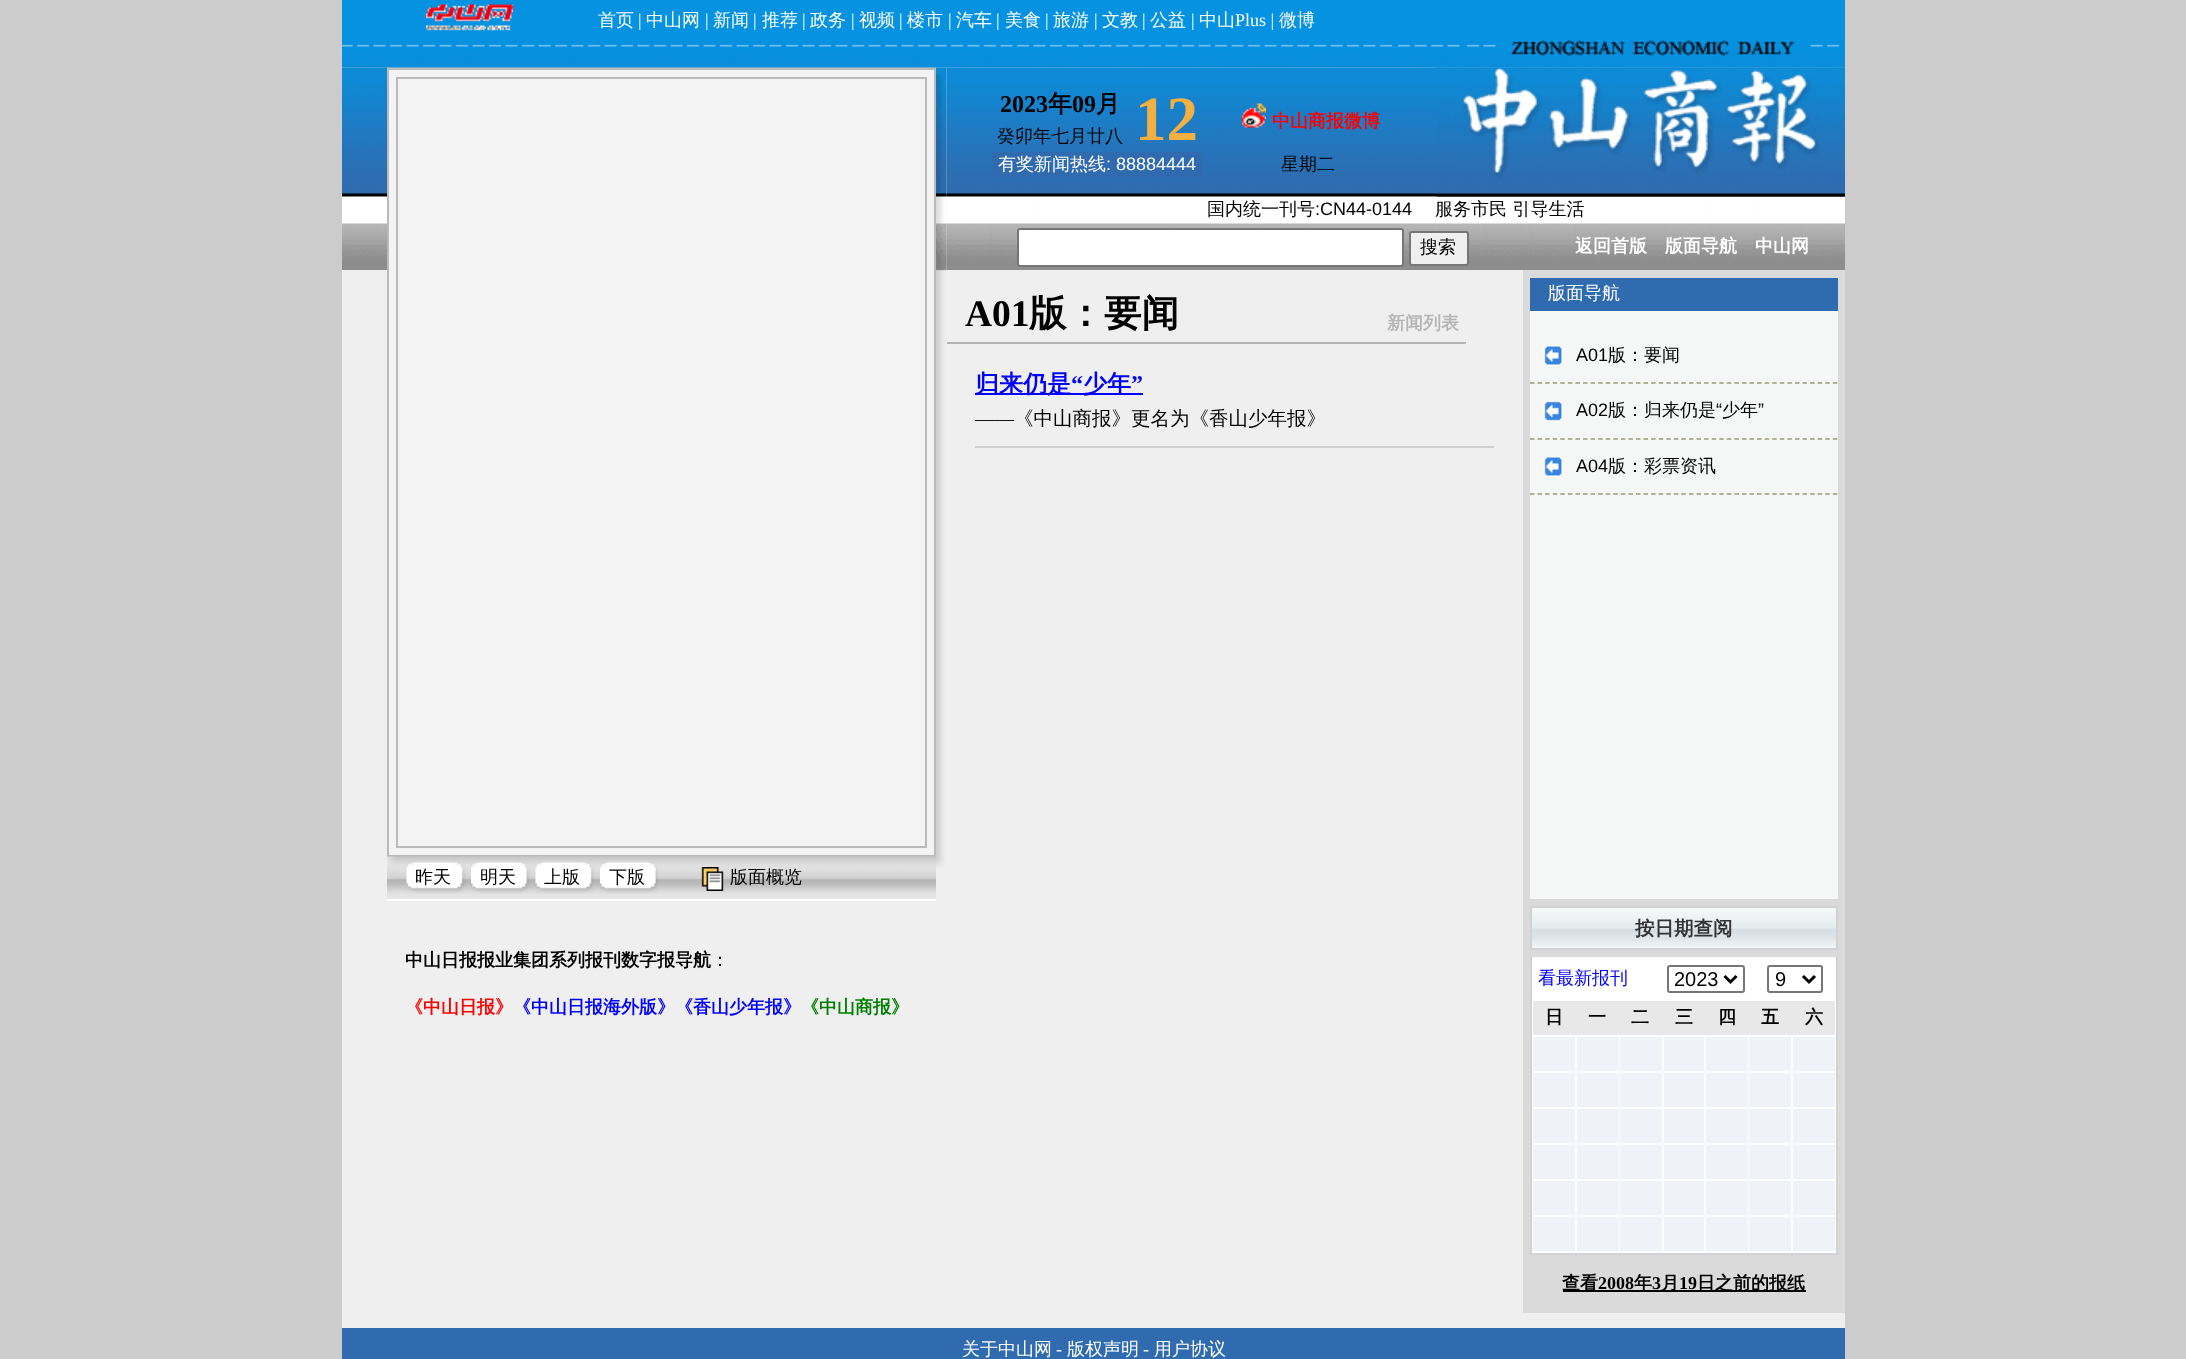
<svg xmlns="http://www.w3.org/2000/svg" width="2186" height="1359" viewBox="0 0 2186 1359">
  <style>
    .t1 { font: 500 18px WenQuanYi Zen Hei; fill: #fff; }
    .t2 { font: 18px Liberation Serif; fill: #fff; }
    .t3 { font: 500 18px WenQuanYi Zen Hei; fill: #000; }
    .t4 { font: bold 18px WenQuanYi Zen Hei; fill: #000; }
    .t5 { font: bold 18px WenQuanYi Zen Hei; fill: #f00; }
    .t6 { font: bold 18px WenQuanYi Zen Hei; fill: #00f; }
    .t7 { font: bold 18px WenQuanYi Zen Hei; fill: #008000; }
    .t8 { font: bold 24px Liberation Serif; fill: #000; }
    .t9 { font: bold 24px WenQuanYi Zen Hei; fill: #000; }
    .t10 { font: bold 63px Liberation Serif; fill: #f3af40; }
    .t11 { font: 18px Liberation Sans; fill: #fff; }
    .t12 { font: 18px Liberation Sans; fill: #000; }
    .t13 { font: bold 18px WenQuanYi Zen Hei; fill: #fff; }
    .t14 { font: bold 37.5px Liberation Serif; fill: #000; }
    .t15 { font: bold 37.5px WenQuanYi Zen Hei; fill: #000; }
    .t16 { font: bold 18px WenQuanYi Zen Hei; fill: #b5b5b5; }
    .t17 { font: bold 24px WenQuanYi Zen Hei; fill: #00f; }
    .t18 { font: bold 24px Liberation Serif; fill: #00f; }
    .t19 { font: 19.5px Liberation Serif; fill: #000; }
    .t20 { font: 500 19.5px WenQuanYi Zen Hei; fill: #000; }
    .t21 { font: bold 19.5px WenQuanYi Zen Hei; fill: #333; }
    .t22 { font: 500 18px WenQuanYi Zen Hei; fill: #00f; }
    .t23 { font: 20px Liberation Sans; fill: #000; }
    .t24 { font: bold 18px Liberation Serif; fill: #000; }
  </style>
  <rect width="100%" height="100%" fill="#ccc"/>
  <rect x="342" y="0" width="1503" height="33" fill="#0592e0"/>
  <image x="426" y="4" width="87" height="27" href="images/1.png"/>
  <text x="598" y="26" class="t1">首页</text>
  <text x="638" y="26" class="t2">|</text>
  <text x="646" y="26" class="t1">中山网</text>
  <text x="705" y="26" class="t2">|</text>
  <text x="713" y="26" class="t1">新闻</text>
  <text x="753" y="26" class="t2">|</text>
  <text x="762" y="26" class="t1">推荐</text>
  <text x="802" y="26" class="t2">|</text>
  <text x="810" y="26" class="t1">政务</text>
  <text x="851" y="26" class="t2">|</text>
  <text x="859" y="26" class="t1">视频</text>
  <text x="899" y="26" class="t2">|</text>
  <text x="907" y="26" class="t1">楼市</text>
  <text x="948" y="26" class="t2">|</text>
  <text x="956" y="26" class="t1">汽车</text>
  <text x="996" y="26" class="t2">|</text>
  <text x="1005" y="26" class="t1">美食</text>
  <text x="1045" y="26" class="t2">|</text>
  <text x="1053" y="26" class="t1">旅游</text>
  <text x="1094" y="26" class="t2">|</text>
  <text x="1102" y="26" class="t1">文教</text>
  <text x="1142" y="26" class="t2">|</text>
  <text x="1150" y="26" class="t1">公益</text>
  <text x="1191" y="26" class="t2">|</text>
  <text x="1199" y="26" class="t1">中山</text>
  <text x="1235" y="26" class="t2">Plus |</text>
  <text x="1279" y="26" class="t1">微博</text>
  <rect x="342" y="68" width="1503" height="1260" fill="#efefef"/>
  <image x="946" y="67" width="899" height="203" href="images/12.png"/>
  <image x="342" y="33" width="1503" height="35" href="images/2.png"/>
  <image x="342" y="67" width="45" height="203" href="images/3.png"/>
  <rect x="388" y="69" width="547" height="787" fill="#f3f3f3" stroke="#bababa" stroke-width="2"/>
  <rect x="397" y="78" width="529" height="769" fill="none" stroke="#bababa" stroke-width="2"/>
  <image x="387" y="856" width="9" height="43" href="images/4.png"/>
  <image x="396" y="856" width="540" height="43" href="images/5.png"/>
  <image x="406" y="862" width="60" height="32" href="images/6.png"/>
  <text x="415" y="883" class="t3">昨天</text>
  <image x="471" y="862" width="59" height="32" href="images/7.png"/>
  <text x="480" y="883" class="t3">明天</text>
  <image x="535" y="862" width="60" height="32" href="images/8.png"/>
  <text x="544" y="883" class="t3">上版</text>
  <image x="600" y="862" width="59" height="32" href="images/9.png"/>
  <text x="609" y="883" class="t3">下版</text>
  <image x="701" y="867" width="23" height="24" href="images/10.png"/>
  <text x="730" y="883" class="t3">版面概览</text>
  <rect x="387" y="899" width="549" height="2" fill="#fff"/>
  <text x="405" y="966" class="t4">中山日报报业集团系列报刊数字报导航</text>
  <text x="711" y="966" class="t3">：</text>
  <text x="405" y="1013" class="t5">《中山日报》</text>
  <text x="513" y="1013" class="t6">《中山日报海外版》《香山少年报》</text>
  <text x="801" y="1013" class="t7">《中山商报》</text>
  <image x="936" y="67" width="11" height="801" href="images/11.png"/>
  <text x="1000" y="112" class="t8">2023</text>
  <text x="1048" y="112" class="t9">年</text>
  <text x="1072" y="112" class="t8">09</text>
  <text x="1096" y="112" class="t9">月</text>
  <text x="1135" y="140" class="t10">12</text>
  <text x="997" y="142" class="t3">癸卯年七月廿八</text>
  <image x="1242" y="103" width="24" height="25" href="images/13.png"/>
  <text x="1272" y="127" class="t5">中山商报微博</text>
  <rect x="992" y="152" width="211" height="27" fill="#306baf"/>
  <text x="998" y="170" class="t1">有奖新闻热线</text>
  <text x="1106" y="170" class="t11">: 88884444</text>
  <text x="1281" y="170" class="t3">星期二</text>
  <image x="1437" y="67" width="408" height="130" href="images/14.png"/>
  <text x="1207" y="215" class="t3">国内统一刊号</text>
  <text x="1315" y="215" class="t12">:CN44-0144</text>
  <text x="1435" y="215" class="t3">服务市民 引导生活</text>
  <rect x="1018" y="229" width="385" height="37" rx="2" fill="#fff" stroke="#767676" stroke-width="2"/>
  <rect x="1410" y="232" width="58" height="33" rx="2" fill="#efefef" stroke="#767676" stroke-width="2"/>
  <text x="1420" y="253" class="t3">搜索</text>
  <text x="1575" y="252" class="t13">返回首版</text>
  <text x="1665" y="252" class="t13">版面导航</text>
  <text x="1755" y="252" class="t13">中山网</text>
  <rect x="947" y="342" width="519" height="2" fill="#b5b5b5"/>
  <text x="965" y="326" class="t14">A01</text>
  <text x="1029" y="326" class="t15">版：要闻</text>
  <text x="1387" y="329" class="t16">新闻列表</text>
  <rect x="975" y="393" width="168" height="2" fill="#00f"/>
  <text x="975" y="392" class="t17">归来仍是</text>
  <text x="1071" y="392" class="t18">“</text>
  <text x="1083" y="392" class="t17">少年</text>
  <text x="1131" y="392" class="t18">”</text>
  <text x="975" y="425" class="t19">——</text>
  <text x="1014" y="425" class="t20">《中山商报》更名为《香山少年报》</text>
  <rect x="975" y="446" width="519" height="2" fill="#cecfce"/>
  <rect x="1523" y="270" width="322" height="1043" fill="#dadada"/>
  <rect x="1530" y="278" width="308" height="33" fill="#306baf"/>
  <text x="1548" y="299" class="t1">版面导航</text>
  <rect x="1530" y="311" width="308" height="588" fill="#f5f6f6"/>
  <path d="M1530 383H1837.5" fill="none" stroke="#9d9c77" stroke-width="1.5" stroke-dasharray="4.5 3.07"/>
  <image x="1543" y="345" width="20" height="21" href="images/15.png"/>
  <text x="1576" y="361" class="t12">A01</text>
  <text x="1608" y="361" class="t3">版：要闻</text>
  <path d="M1530 439H1837.5" fill="none" stroke="#9d9c77" stroke-width="1.5" stroke-dasharray="4.5 3.07"/>
  <image x="1543" y="400" width="20" height="22" href="images/16.png"/>
  <text x="1576" y="416" class="t12">A02</text>
  <text x="1608" y="416" class="t3">版：归来仍是</text>
  <text x="1716" y="416" class="t12">“</text>
  <text x="1722" y="416" class="t3">少年</text>
  <text x="1758" y="416" class="t12">”</text>
  <path d="M1530 494H1837.5" fill="none" stroke="#9d9c77" stroke-width="1.5" stroke-dasharray="4.5 3.07"/>
  <image x="1543" y="456" width="20" height="21" href="images/15.png"/>
  <text x="1576" y="472" class="t12">A04</text>
  <text x="1608" y="472" class="t3">版：彩票资讯</text>
  <image x="1532" y="908" width="304" height="40" href="images/17.png"/>
  <rect x="1531" y="907" width="306" height="42" fill="none" stroke="#d2d2d2" stroke-width="2"/>
  <text x="1635" y="935" class="t21">按日期查阅</text>
  <rect x="1836" y="957" width="2" height="297" fill="#d2d2d2"/>
  <rect x="1530" y="1253" width="308" height="2" fill="#d2d2d2"/>
  <rect x="1530" y="957" width="2" height="297" fill="#d2d2d2"/>
  <rect x="1532" y="957" width="304" height="296" fill="#fff"/>
  <text x="1538" y="984" class="t22">看最新报刊</text>
  <rect x="1668" y="966" width="76" height="26" rx="2" fill="none" stroke="#767676" stroke-width="2"/>
  <path d="M1724.5 976L1730.5 982L1736.5 976" fill="none" stroke="#000" stroke-width="3"/>
  <text x="1674" y="986" class="t23">2023</text>
  <rect x="1768" y="966" width="54" height="26" rx="2" fill="none" stroke="#767676" stroke-width="2"/>
  <path d="M1803 976L1809 982L1815 976" fill="none" stroke="#000" stroke-width="3"/>
  <text x="1775" y="986" class="t23">9</text>
  <rect x="1533" y="1001" width="302" height="34" fill="#e8e8e8"/>
  <text x="1545" y="1023" class="t4">日</text>
  <text x="1588" y="1023" class="t4">一</text>
  <text x="1631" y="1023" class="t4">二</text>
  <text x="1675" y="1023" class="t4">三</text>
  <text x="1718" y="1023" class="t4">四</text>
  <text x="1761" y="1023" class="t4">五</text>
  <text x="1805" y="1023" class="t4">六</text>
  <rect x="1533" y="1037" width="42" height="34" fill="#eff3f7"/>
  <rect x="1577" y="1037" width="42" height="34" fill="#eff3f7"/>
  <rect x="1620" y="1037" width="42" height="34" fill="#eff3f7"/>
  <rect x="1664" y="1037" width="40" height="34" fill="#eff3f7"/>
  <rect x="1706" y="1037" width="42" height="34" fill="#eff3f7"/>
  <rect x="1749" y="1037" width="42" height="34" fill="#eff3f7"/>
  <rect x="1793" y="1037" width="42" height="34" fill="#eff3f7"/>
  <rect x="1533" y="1073" width="42" height="34" fill="#eff3f7"/>
  <rect x="1577" y="1073" width="42" height="34" fill="#eff3f7"/>
  <rect x="1620" y="1073" width="42" height="34" fill="#eff3f7"/>
  <rect x="1664" y="1073" width="40" height="34" fill="#eff3f7"/>
  <rect x="1706" y="1073" width="42" height="34" fill="#eff3f7"/>
  <rect x="1749" y="1073" width="42" height="34" fill="#eff3f7"/>
  <rect x="1793" y="1073" width="42" height="34" fill="#eff3f7"/>
  <rect x="1533" y="1109" width="42" height="34" fill="#eff3f7"/>
  <rect x="1577" y="1109" width="42" height="34" fill="#eff3f7"/>
  <rect x="1620" y="1109" width="42" height="34" fill="#eff3f7"/>
  <rect x="1664" y="1109" width="40" height="34" fill="#eff3f7"/>
  <rect x="1706" y="1109" width="42" height="34" fill="#eff3f7"/>
  <rect x="1749" y="1109" width="42" height="34" fill="#eff3f7"/>
  <rect x="1793" y="1109" width="42" height="34" fill="#eff3f7"/>
  <rect x="1533" y="1145" width="42" height="34" fill="#eff3f7"/>
  <rect x="1577" y="1145" width="42" height="34" fill="#eff3f7"/>
  <rect x="1620" y="1145" width="42" height="34" fill="#eff3f7"/>
  <rect x="1664" y="1145" width="40" height="34" fill="#eff3f7"/>
  <rect x="1706" y="1145" width="42" height="34" fill="#eff3f7"/>
  <rect x="1749" y="1145" width="42" height="34" fill="#eff3f7"/>
  <rect x="1793" y="1145" width="42" height="34" fill="#eff3f7"/>
  <rect x="1533" y="1181" width="42" height="34" fill="#eff3f7"/>
  <rect x="1577" y="1181" width="42" height="34" fill="#eff3f7"/>
  <rect x="1620" y="1181" width="42" height="34" fill="#eff3f7"/>
  <rect x="1664" y="1181" width="40" height="34" fill="#eff3f7"/>
  <rect x="1706" y="1181" width="42" height="34" fill="#eff3f7"/>
  <rect x="1749" y="1181" width="42" height="34" fill="#eff3f7"/>
  <rect x="1793" y="1181" width="42" height="34" fill="#eff3f7"/>
  <rect x="1533" y="1217" width="42" height="34" fill="#eff3f7"/>
  <rect x="1577" y="1217" width="42" height="34" fill="#eff3f7"/>
  <rect x="1620" y="1217" width="42" height="34" fill="#eff3f7"/>
  <rect x="1664" y="1217" width="40" height="34" fill="#eff3f7"/>
  <rect x="1706" y="1217" width="42" height="34" fill="#eff3f7"/>
  <rect x="1749" y="1217" width="42" height="34" fill="#eff3f7"/>
  <rect x="1793" y="1217" width="42" height="34" fill="#eff3f7"/>
  <rect x="1563" y="1290" width="243" height="2" fill="#000"/>
  <text x="1562" y="1289" class="t4">查看</text>
  <text x="1598" y="1289" class="t24">2008</text>
  <text x="1634" y="1289" class="t4">年</text>
  <text x="1652" y="1289" class="t24">3</text>
  <text x="1661" y="1289" class="t4">月</text>
  <text x="1679" y="1289" class="t24">19</text>
  <text x="1697" y="1289" class="t4">日之前的报纸</text>
  <rect x="342" y="1328" width="1503" height="31" fill="#306baf"/>
  <text x="962" y="1355" class="t1">关于中山网</text>
  <text x="1056" y="1355" class="t2">-</text>
  <text x="1067" y="1355" class="t1">版权声明</text>
  <text x="1143" y="1355" class="t2">-</text>
  <text x="1154" y="1355" class="t1">用户协议</text>
</svg>
